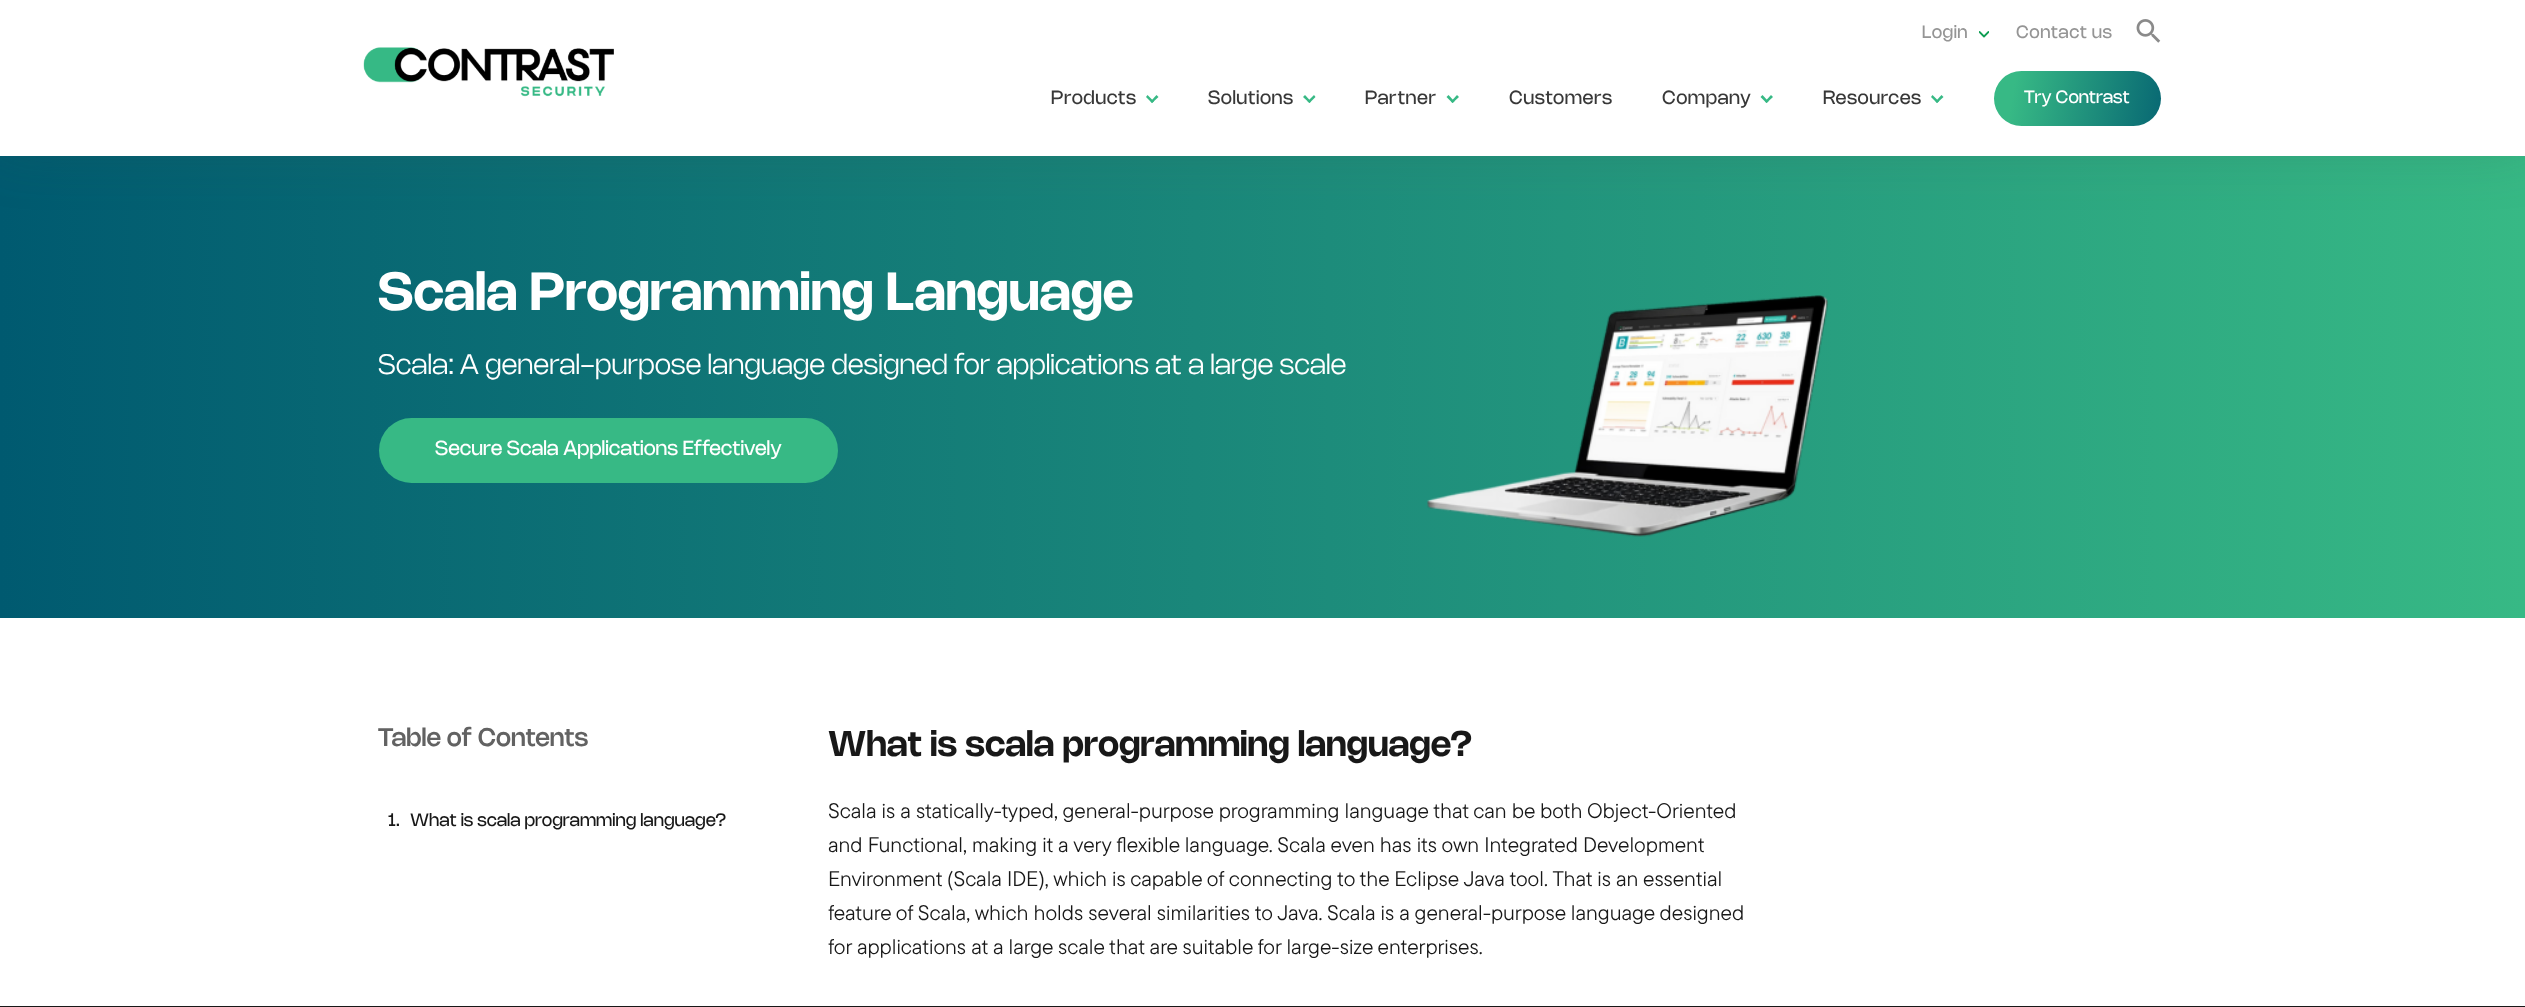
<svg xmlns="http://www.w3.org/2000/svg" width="2525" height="1007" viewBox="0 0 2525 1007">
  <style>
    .t1 { font: 17.5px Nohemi; letter-spacing: 0.5px; fill: #959595; }
    .t2 { font: 18.75px Nohemi; letter-spacing: 0.5px; fill: #383838; }
    .t3 { font: 17.5px Nohemi; fill: #fff; }
    .t4 { font: 600 52.5px Nohemi; fill: #fff; }
    .t5 { font: 300 27.5px Nohemi; fill: #fff; }
    .t6 { font: 20px Nohemi; fill: #fff; }
    .t7 { font: 500 25px Nohemi; fill: #626262; }
    .t8 { font: 17.5px Nohemi; fill: #181818; }
    .t9 { font: 600 35px Nohemi; fill: #181818; }
    .t10 { font: 21.25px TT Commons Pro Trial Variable; fill: #181818; }
  </style>
  <defs>
    <linearGradient id="g1" gradientUnits="userSpaceOnUse" x1="0" y1="371" x2="2525" y2="371"><stop offset="0" stop-color="#005a70"/><stop offset="1" stop-color="#37b985"/></linearGradient>
    <clipPath id="clip1"><rect x="1979" y="31" width="10" height="7"/></clipPath>
    <linearGradient id="g2" gradientUnits="userSpaceOnUse" x1="1992" y1="85" x2="2189" y2="116"><stop offset="0.11" stop-color="#37b985"/><stop offset="1" stop-color="#005a70"/></linearGradient>
  </defs>
  <rect width="100%" height="100%" fill="#181818"/>
  <rect x="0" y="156" width="2525" height="462" fill="url(#g1)"/>
  <rect x="-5" y="-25" width="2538" height="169" fill="#2b544440" filter="blur(31px)"/>
  <rect x="0" y="0" width="2525" height="156" fill="#fff"/>
  <image x="363" y="47" width="251" height="50" href="images/1.png"/>
  <text x="1922" y="38" class="t1">Login</text>
  <g clip-path="url(#clip1)">
    <path d="M1979.5 32L1984 36.5L1988.5 32" fill="none" stroke="#0e9e53" stroke-width="1.8" stroke-linecap="round" stroke-linejoin="round"/>
  </g>
  <text x="2016" y="38" class="t1">Contact us</text>
  <image x="2136" y="19" width="25" height="24" href="images/2.png"/>
  <text x="1051" y="104" class="t2">Products</text>
  <path d="M1150.5 101.5L1156.5 95L1158.5 97L1152 103Z" fill="#37b985"/>
  <path d="M1146 97L1147.5 95L1154 101.5L1152 103Z" fill="#37b985"/>
  <text x="1208" y="104" class="t2">Solutions</text>
  <path d="M1307.5 101.5L1314 95L1315.5 97L1309.5 103Z" fill="#37b985"/>
  <path d="M1303 97L1305 95L1311 101.5L1309.5 103Z" fill="#37b985"/>
  <text x="1365" y="104" class="t2">Partner</text>
  <path d="M1451 101.5L1457 95L1459 97L1452.5 103Z" fill="#37b985"/>
  <path d="M1446.5 97L1448.5 95L1454.5 101.5L1452.5 103Z" fill="#37b985"/>
  <text x="1509" y="104" class="t2">Customers</text>
  <text x="1662" y="104" class="t2">Company</text>
  <path d="M1765 101.5L1771 95L1773 97L1766.5 103Z" fill="#37b985"/>
  <path d="M1760.5 97L1762.5 95L1768.5 101.5L1766.5 103Z" fill="#37b985"/>
  <text x="1823" y="104" class="t2">Resources</text>
  <path d="M1935.5 101.5L1941.5 95L1943.5 97L1937 103Z" fill="#37b985"/>
  <path d="M1931 97L1932.5 95L1939 101.5L1937 103Z" fill="#37b985"/>
  <rect x="1994" y="71" width="167" height="55" rx="27.5" fill="url(#g2)"/>
  <text x="2024" y="103" class="t3">Try Contrast</text>
  <rect x="0" y="618" width="2525" height="388" fill="#fff"/>
  <text x="378" y="310" class="t4">Scala Programming Language</text>
  <text x="378" y="374" class="t5">Scala: A general-purpose language designed for applications at a large scale</text>
  <rect x="379" y="418" width="459" height="65" rx="32.5" fill="#37b985"/>
  <text x="435" y="455" class="t6">Secure Scala Applications Effectively</text>
  <image x="1427" y="295" width="401" height="242" href="images/3.png"/>
  <text x="378" y="746" class="t7">Table of Contents</text>
  <text x="388" y="826" class="t8">1.</text>
  <text x="410" y="826" class="t8">What is scala programming language?</text>
  <text x="828" y="756" class="t9">What is scala programming language?</text>
  <text x="828" y="818" class="t10">Scala is a statically-typed, general-purpose programming language that can be both Object-Oriented</text>
  <text x="828" y="852" class="t10">and Functional, making it a very flexible language. Scala even has its own Integrated Development</text>
  <text x="828" y="886" class="t10">Environment (Scala IDE), which is capable of connecting to the Eclipse Java tool. That is an essential</text>
  <text x="828" y="920" class="t10">feature of Scala, which holds several similarities to Java. Scala is a general-purpose language designed</text>
  <text x="828" y="954" class="t10">for applications at a large scale that are suitable for large-size enterprises.</text>
</svg>
